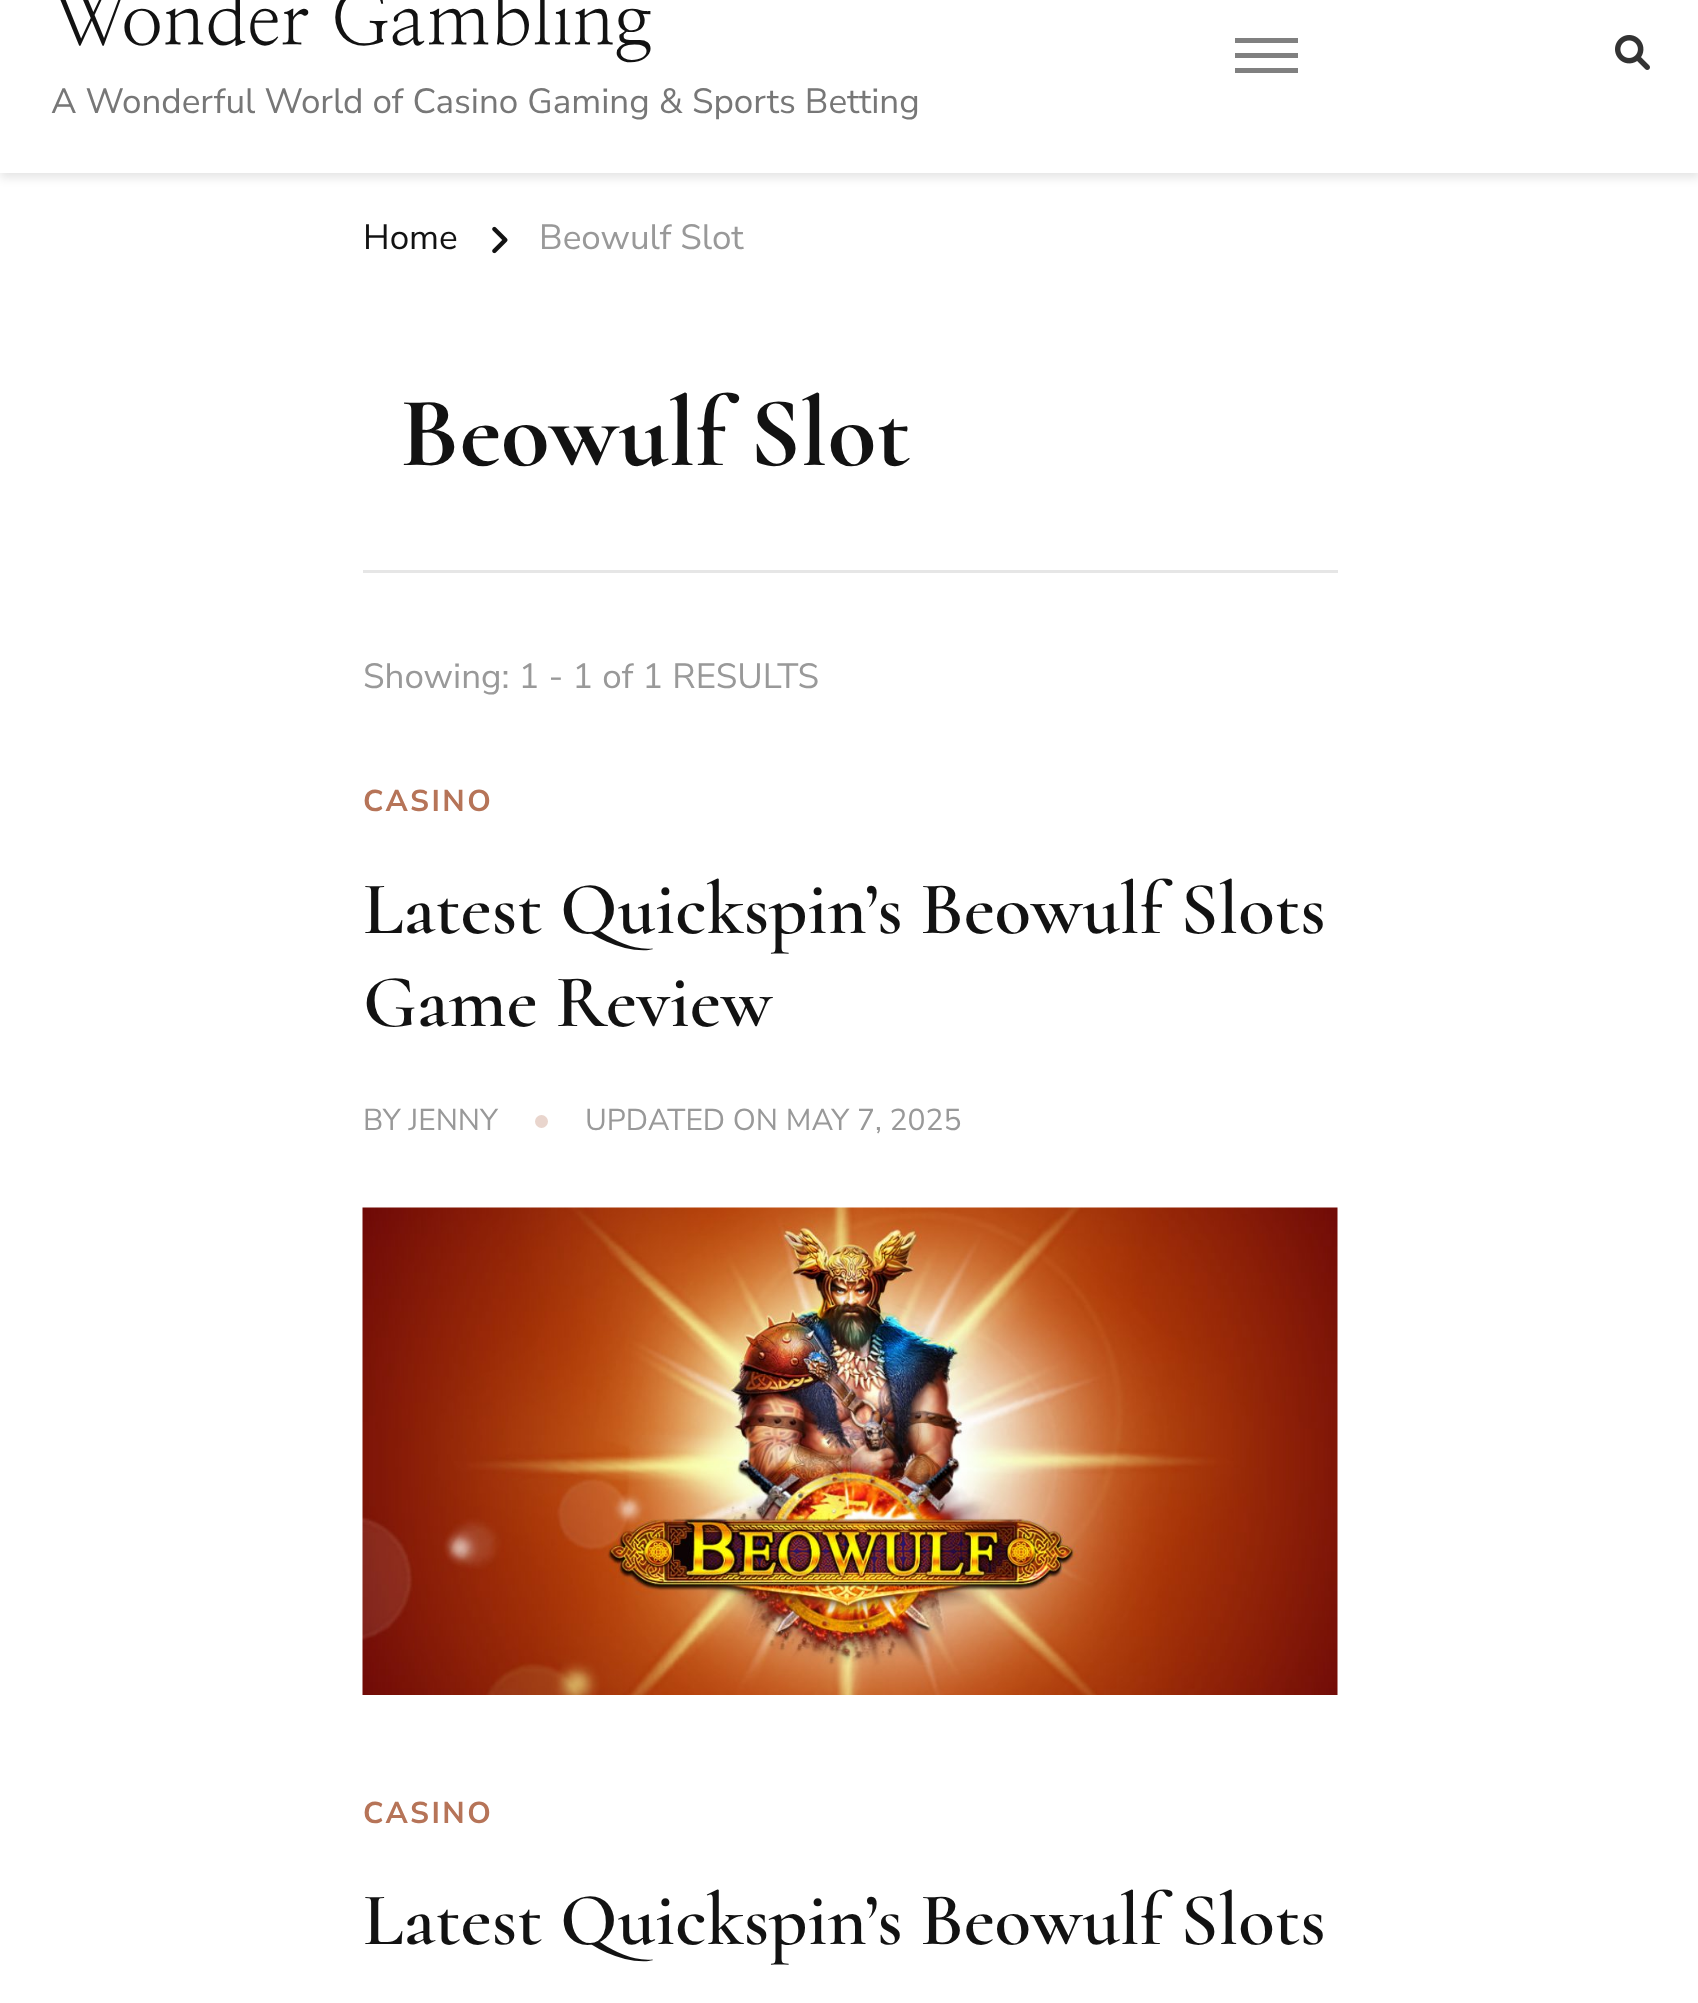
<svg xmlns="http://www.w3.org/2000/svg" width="1698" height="2003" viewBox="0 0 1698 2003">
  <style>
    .t1 { font: 75px NanumMyeongjo; fill: #121212; }
    .t2 { font: 35px Nunito Sans; fill: #777; }
    .t3 { font: 35px Nunito Sans; fill: #121212; }
    .t4 { font: 35px Nunito Sans; fill: #999; }
    .t5 { font: bold 100px Cormorant; fill: #121212; }
    .t6 { font: bold 30px Nunito Sans; letter-spacing: 2.5px; fill: #b67458; }
    .t7 { font: 600 75.2px Cormorant; fill: #121212; }
    .t8 { font: 30px Nunito Sans; fill: #999; }
  </style>
  <defs>
    <clipPath id="clip1"><path d="M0 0H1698V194H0ZM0-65H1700V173H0Z" clip-rule="evenodd"/></clipPath>
  </defs>
  <rect width="100%" height="100%" fill="#fff"/>
  <g clip-path="url(#clip1)">
    <rect x="0" y="-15" width="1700" height="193" fill="#0000001a" filter="blur(5px)"/>
  </g>
  <text x="51" y="45" class="t1">Wonder Gambling</text>
  <text x="51" y="113" class="t2">A Wonderful World of Casino Gaming &amp; Sports Betting</text>
  <rect x="1235" y="38" width="63" height="5" fill="#808080"/>
  <rect x="1235" y="53" width="63" height="5" fill="#808080"/>
  <rect x="1235" y="68" width="63" height="5" fill="#808080"/>
  <image x="1615" y="35" width="35" height="35" href="images/1.png"/>
  <text x="363" y="249" class="t3">Home</text>
  <image x="492" y="226" width="16" height="28" href="images/2.png"/>
  <text x="539" y="249" class="t4">Beowulf Slot</text>
  <rect x="363" y="570" width="975" height="3" fill="#e6e6e6"/>
  <text x="400" y="465" class="t5">Beowulf Slot</text>
  <text x="363" y="688" class="t4">Showing: 1 - 1 of 1 RESULTS</text>
  <text x="363" y="811" class="t6">CASINO</text>
  <text x="363" y="933" class="t7">Latest Quickspin’s Beowulf Slots</text>
  <text x="363" y="1026" class="t7">Game Review</text>
  <text x="363" y="1130" class="t8">BY JENNY</text>
  <circle cx="541.5" cy="1121.5" r="6.5" fill="#e9d5cd"/>
  <text x="585" y="1130" class="t8">UPDATED ON MAY 7, 2025</text>
  <image x="362" y="1207" width="976" height="488" href="images/3.png"/>
  <text x="363" y="1823" class="t6">CASINO</text>
  <text x="363" y="1944" class="t7">Latest Quickspin’s Beowulf Slots</text>
</svg>
